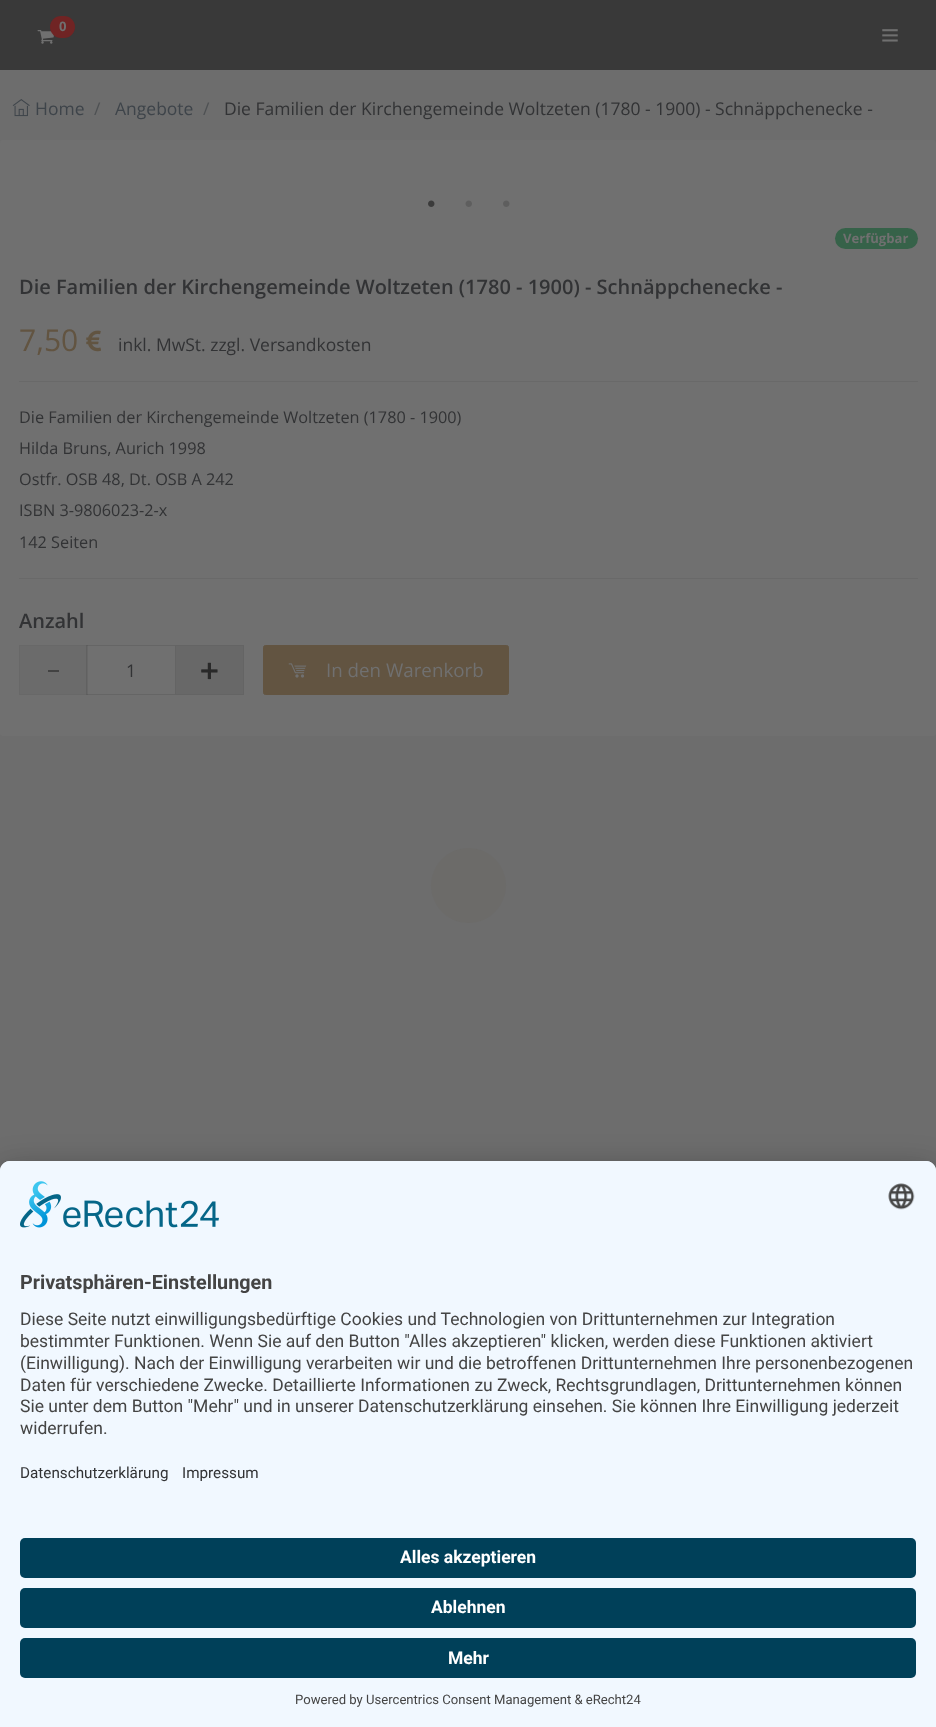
<svg xmlns="http://www.w3.org/2000/svg" width="936" height="1727" viewBox="0 0 936 1727">
  <style>
    .t1 { font: bold 13.1px Open Sans; fill: #707070; }
    .t2 { font: 17.5px Open Sans; fill: #3e444a; }
    .t3 { font: 17.5px Open Sans; fill: #4e5153; }
    .t4 { font: 17.5px Open Sans; fill: #323335; }
    .t5 { font: 600 20px Open Sans; fill: #323335; }
    .t6 { font: 30px Open Sans; fill: #625441; }
    .t7 { font: 16.25px Open Sans; fill: #323335; }
    .t8 { font: 18.75px Open Sans; fill: #707070; }
    .t9 { font: bold 19.75px Roboto; fill: #444; }
    .t10 { font: 17.5px Roboto; fill: #444; }
    .t11 { font: 15.25px Roboto; fill: #323335; }
    .t12 { font: bold 17.5px Roboto; fill: #fff; }
    .t13 { font: 13.1px Roboto; fill: #444; }
  </style>
  <rect width="100%" height="100%" fill="#6d6d6d"/>
  <rect x="0" y="0" width="936" height="70" fill="#393939"/>
  <image x="37" y="30" width="17" height="14" href="images/1.png"/>
  <rect x="50" y="16" width="25" height="22" rx="11" fill="#702424"/>
  <text x="59" y="31" class="t1">0</text>
  <image x="882" y="29" width="16" height="13" href="images/2.png"/>
  <image x="12" y="99" width="18" height="18" href="images/3.png"/>
  <text x="35" y="115" class="t2">Home</text>
  <text x="94" y="115" class="t3">/</text>
  <text x="115" y="115" class="t2">Angebote</text>
  <text x="203" y="115" class="t3">/</text>
  <text x="224" y="115" class="t4">Die Familien der Kirchengemeinde Woltzeten (1780 - 1900) - Schnäppchenecke -</text>
  <rect x="0" y="140" width="936" height="596" rx="2.5" fill="#707070"/>
  <image x="428" y="200" width="7" height="7" href="images/4.png"/>
  <image x="465" y="200" width="7" height="7" href="images/5.png"/>
  <image x="503" y="200" width="7" height="7" href="images/6.png"/>
  <rect x="835" y="228" width="83" height="21" rx="10.5" fill="#366249"/>
  <text x="843" y="243" class="t1">Verfügbar</text>
  <text x="19" y="294" class="t5">Die Familien der Kirchengemeinde Woltzeten (1780 - 1900) - Schnäppchenecke -</text>
  <text x="19" y="351" class="t6">7,50</text>
  <image x="86" y="330" width="15" height="22" href="images/7.png"/>
  <text x="118" y="351" class="t4">inkl. MwSt. zzgl. Versandkosten</text>
  <rect x="19" y="381" width="899" height="1" fill="#696969"/>
  <text x="19" y="423" class="t7">Die Familien der Kirchengemeinde Woltzeten (1780 - 1900)</text>
  <text x="19" y="454" class="t7">Hilda Bruns, Aurich 1998</text>
  <text x="19" y="485" class="t7">Ostfr. OSB 48, Dt. OSB A 242</text>
  <text x="19" y="516" class="t7">ISBN 3-9806023-2-x</text>
  <text x="19" y="548" class="t7">142 Seiten</text>
  <rect x="19" y="578" width="899" height="1" fill="#696969"/>
  <text x="19" y="628" class="t5">Anzahl</text>
  <rect x="19.5" y="645.5" width="68" height="49" fill="#6b6b6b" stroke="#686868"/>
  <rect x="48" y="670" width="11" height="2" fill="#424242"/>
  <rect x="86.5" y="645.5" width="89" height="49" fill="none" stroke="#29292926"/>
  <text x="126" y="677" class="t4">1</text>
  <rect x="175.5" y="645.5" width="68" height="49" fill="#686868" stroke="#646464"/>
  <image x="201" y="662" width="17" height="18" href="images/8.png"/>
  <rect x="263.5" y="645.5" width="245" height="49" rx="2" fill="#625441" stroke="#625441"/>
  <image x="288" y="663" width="19" height="15" href="images/9.png"/>
  <text x="326" y="677" class="t8">In den Warenkorb</text>
  <circle cx="468.5" cy="885.5" r="37.5" fill="#6c6b69"/>
  <rect x="0" y="1186" width="936" height="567" rx="10" fill="#0000004d" filter="blur(17.5px)"/>
  <rect x="0" y="1168" width="936" height="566" rx="10" fill="#00000038" filter="blur(16px)"/>
  <path d="M10 1161H926C931.5 1161 936 1165.5 936 1171V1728H0V1171C0 1165.5 4.5 1161 10 1161Z" fill="#f1f8ff"/>
  <path d="M10 1161H926C931.5 1161 936 1165.5 936 1171V1523H0V1171C0 1165.5 4.5 1161 10 1161Z" fill="#f1f8ff"/>
  <image x="20" y="1181" width="199" height="47" href="images/10.png"/>
  <image x="888" y="1183" width="27" height="27" href="images/11.png"/>
  <text x="20" y="1289" class="t9">Privatsphären-Einstellungen</text>
  <text x="20" y="1325" class="t10">Diese Seite nutzt einwilligungsbedürftige Cookies und Technologien von Drittunternehmen zur Integration</text>
  <text x="20" y="1347" class="t10">bestimmter Funktionen. Wenn Sie auf den Button "Alles akzeptieren" klicken, werden diese Funktionen aktiviert</text>
  <text x="20" y="1369" class="t10">(Einwilligung). Nach der Einwilligung verarbeiten wir und die betroffenen Drittunternehmen Ihre personenbezogenen</text>
  <text x="20" y="1391" class="t10">Daten für verschiedene Zwecke. Detaillierte Informationen zu Zweck, Rechtsgrundlagen, Drittunternehmen können</text>
  <text x="20" y="1412" class="t10">Sie unter dem Button "Mehr" und in unserer Datenschutzerklärung einsehen. Sie können Ihre Einwilligung jederzeit</text>
  <text x="20" y="1434" class="t10">widerrufen.</text>
  <text x="20" y="1478" class="t11">Datenschutzerklärung</text>
  <text x="182" y="1478" class="t11">Impressum</text>
  <rect x="20" y="1538" width="896" height="40" rx="5" fill="#004059"/>
  <text x="400" y="1563" class="t12">Alles akzeptieren</text>
  <rect x="20" y="1588" width="896" height="40" rx="5" fill="#004059"/>
  <text x="431" y="1613" class="t12">Ablehnen</text>
  <rect x="20" y="1638" width="896" height="40" rx="5" fill="#004059"/>
  <text x="448" y="1664" class="t12">Mehr</text>
  <text x="295" y="1704" class="t13">Powered by Usercentrics Consent Management &amp; eRecht24</text>
</svg>
